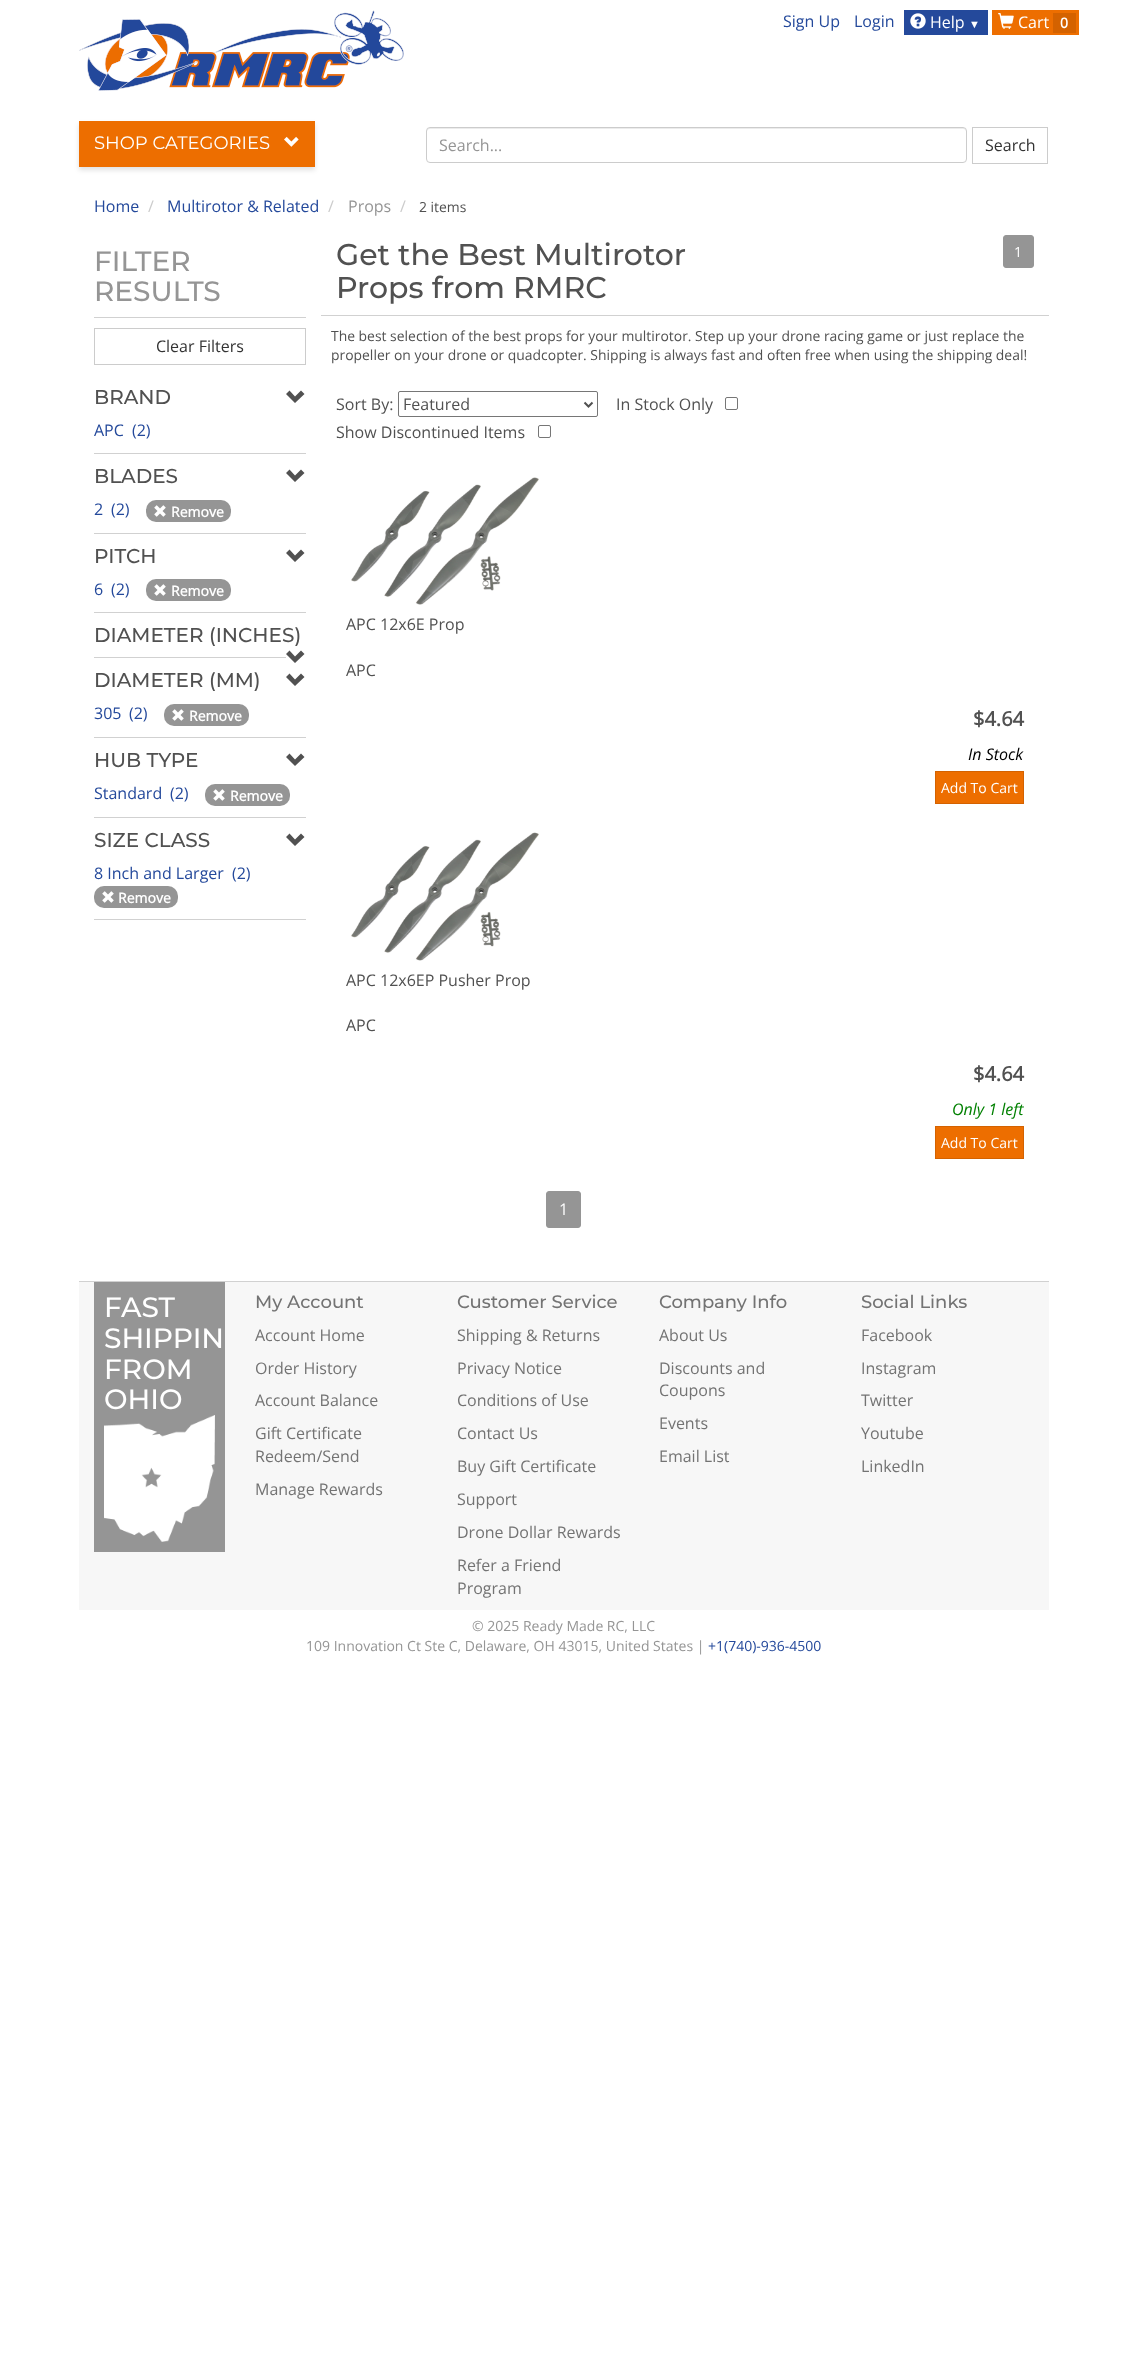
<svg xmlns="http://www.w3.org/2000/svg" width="1127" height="2353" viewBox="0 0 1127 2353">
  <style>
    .t1 { font: 16px Open Sans; fill: #24499b; }
    .t2 { font: 16px Open Sans; fill: #fff; }
    .t3 { font: 11px Liberation Sans; fill: #fff; }
    .t4 { font: bold 14px Open Sans; fill: #fff; }
    .t5 { font: 18px Montserrat; fill: #fff; }
    .t6 { font: 16px Open Sans; fill: #959595; }
    .t7 { font: 16px Open Sans; fill: #333; }
    .t8 { font: 16px Open Sans; fill: #ccc; }
    .t9 { font: 13.92px Open Sans; fill: #515151; }
    .t10 { font: 500 28px Montserrat; fill: #959595; }
    .t11 { font: 500 20px Montserrat; fill: #515151; }
    .t12 { font: 500 30px Montserrat; fill: #515151; }
    .t13 { font: 14px Open Sans; fill: #fff; }
    .t14 { font: 16px Open Sans; fill: #515151; }
    .t15 { font: bold 20px Open Sans; fill: #515151; }
    .t16 { font: italic 16px Open Sans; fill: #000; }
    .t17 { font: italic 16px Open Sans; fill: #008000; }
    .t18 { font: 500 28px Montserrat; fill: #fff; }
    .t19 { font: 500 18px Montserrat; fill: #737373; }
    .t20 { font: 16px Open Sans; fill: #737373; }
    .t21 { font: 14px Open Sans; fill: #959595; }
    .t22 { font: 14px Open Sans; fill: #24499b; }
  </style>
  <rect width="100%" height="100%" fill="#fff"/>
  <image x="79" y="10" width="325" height="81" href="images/1.png"/>
  <text x="783" y="27" class="t1">Sign Up</text>
  <text x="854" y="27" class="t1">Login</text>
  <rect x="904" y="10" width="84" height="25" fill="#24499b"/>
  <image x="910" y="13" width="16" height="16" href="images/2.png"/>
  <text x="930" y="28" class="t2">Help</text>
  <text x="969" y="28" class="t3">▼</text>
  <rect x="992" y="10" width="87" height="25" fill="#ed6e00"/>
  <image x="998" y="13" width="16" height="16" href="images/3.png"/>
  <text x="1018" y="28" class="t2">Cart</text>
  <rect x="1053" y="13" width="23" height="20" fill="#d46200"/>
  <text x="1060" y="28" class="t4">0</text>
  <rect x="79" y="124" width="236" height="46" fill="#0000001f" filter="blur(2.5px)"/>
  <rect x="79" y="121" width="236" height="46" fill="#ed6e00"/>
  <text x="94" y="149" class="t5">SHOP CATEGORIES</text>
  <image x="284" y="136" width="15" height="11" href="images/4.png"/>
  <path d="M430 129H963C965 129 966 130 966 132V131C966 129 965 128 963 128H430C428 128 427 129 427 131V132C427 130 428 129 430 129Z" fill="#ececec"/>
  <rect x="426.5" y="127.5" width="540" height="35" rx="3.5" fill="none" stroke="#ccc"/>
  <text x="439" y="151" class="t6">Search...</text>
  <rect x="972.5" y="127.5" width="75" height="36" fill="none" stroke="#ccc"/>
  <text x="985" y="151" class="t7">Search</text>
  <text x="94" y="212" class="t1">Home</text>
  <text x="148" y="212" class="t8">/</text>
  <text x="167" y="212" class="t1">Multirotor &amp; Related</text>
  <text x="328" y="212" class="t8">/</text>
  <text x="348" y="212" class="t6">Props</text>
  <text x="400" y="212" class="t8">/</text>
  <text x="419" y="212" class="t9">2 items</text>
  <rect x="94" y="317" width="212" height="1" fill="#d1d1d1"/>
  <text x="94" y="271" class="t10">FILTER</text>
  <text x="94" y="301" class="t10">RESULTS</text>
  <rect x="94.5" y="328.5" width="211" height="36" fill="none" stroke="#ccc"/>
  <text x="156" y="352" class="t7">Clear Filters</text>
  <text x="94" y="404" class="t11">BRAND</text>
  <path d="M304.5 394L295 403L286 394L289.5 390.5L295 396.5L301 390.5Z" fill="#515151"/>
  <text x="94" y="436" class="t1">APC</text>
  <text x="132" y="436" class="t1">(2)</text>
  <rect x="94" y="453" width="212" height="1" fill="#d1d1d1"/>
  <text x="94" y="483" class="t11">BLADES</text>
  <path d="M304.5 473L295 482L286 473L289.5 469.5L295 475.5L301 469.5Z" fill="#515151"/>
  <text x="94" y="515" class="t1">2</text>
  <text x="111" y="515" class="t1">(2)</text>
  <rect x="146" y="500" width="85" height="22" rx="10" fill="#959595"/>
  <image x="154" y="505" width="12" height="12" href="images/5.png"/>
  <text x="171" y="517" class="t4">Remove</text>
  <rect x="94" y="533" width="212" height="1" fill="#d1d1d1"/>
  <text x="94" y="563" class="t11">PITCH</text>
  <path d="M304.5 553L295 562L286 553L289.5 549.5L295 555.5L301 549.5Z" fill="#515151"/>
  <text x="94" y="595" class="t1">6</text>
  <text x="111" y="595" class="t1">(2)</text>
  <rect x="146" y="579" width="85" height="22" rx="10" fill="#959595"/>
  <image x="154" y="584" width="12" height="12" href="images/5.png"/>
  <text x="171" y="596" class="t4">Remove</text>
  <rect x="94" y="612" width="212" height="1" fill="#d1d1d1"/>
  <text x="94" y="642" class="t11">DIAMETER (INCHES)</text>
  <path d="M304.5 654L295 663L286 654L289.5 650.5L295 656.5L301 650.5ZM304.5 677L295 686L286 677L289.5 673.5L295 679.5L301 673.5Z" fill="#515151"/>
  <rect x="94" y="657" width="192" height="1" fill="#d1d1d1"/>
  <text x="94" y="687" class="t11">DIAMETER (MM)</text>
  <text x="94" y="719" class="t1">305</text>
  <text x="129" y="719" class="t1">(2)</text>
  <rect x="164" y="704" width="85" height="22" rx="10" fill="#959595"/>
  <image x="172" y="709" width="12" height="12" href="images/5.png"/>
  <text x="189" y="721" class="t4">Remove</text>
  <rect x="94" y="737" width="212" height="1" fill="#d1d1d1"/>
  <text x="94" y="767" class="t11">HUB TYPE</text>
  <path d="M304.5 757L295 766L286 757L289.5 753.5L295 759.5L301 753.5Z" fill="#515151"/>
  <text x="94" y="799" class="t1">Standard</text>
  <text x="170" y="799" class="t1">(2)</text>
  <rect x="205" y="784" width="85" height="22" rx="10" fill="#959595"/>
  <image x="213" y="789" width="12" height="12" href="images/5.png"/>
  <text x="230" y="801" class="t4">Remove</text>
  <rect x="94" y="817" width="212" height="1" fill="#d1d1d1"/>
  <text x="94" y="847" class="t11">SIZE CLASS</text>
  <path d="M304.5 837L295 846L286 837L289.5 833.5L295 839.5L301 833.5Z" fill="#515151"/>
  <text x="94" y="879" class="t1">8 Inch and Larger</text>
  <text x="232" y="879" class="t1">(2)</text>
  <rect x="94" y="886" width="84" height="22" rx="10" fill="#959595"/>
  <image x="102" y="891" width="12" height="12" href="images/5.png"/>
  <text x="118" y="903" class="t4">Remove</text>
  <rect x="94" y="919" width="212" height="1" fill="#d1d1d1"/>
  <rect x="321" y="315" width="728" height="1" fill="#d1d1d1"/>
  <text x="336" y="265" class="t12">Get the Best Multirotor</text>
  <text x="336" y="298" class="t12">Props from RMRC</text>
  <rect x="1003.5" y="235.5" width="30" height="32" rx="2.5" fill="#959595" stroke="#959595"/>
  <text x="1014" y="257" class="t13">1</text>
  <text x="331" y="341" class="t9">The best selection of the best props for your multirotor. Step up your drone racing game or just replace the</text>
  <text x="331" y="360" class="t9">propeller on your drone or quadcopter. Shipping is always fast and often free when using the shipping deal!</text>
  <text x="336" y="410" class="t14">Sort By:</text>
  <rect x="398.5" y="391.5" width="199" height="25" rx="1.5" fill="none" stroke="#767676"/>
  <path d="M584.5 402.5L588.5 406.5L592.5 402.5" fill="none" stroke="#515151" stroke-width="2"/>
  <text x="403" y="410" class="t14">Featured</text>
  <text x="616" y="410" class="t14">In Stock Only</text>
  <rect x="725.5" y="397.5" width="12" height="12" rx="1.5" fill="none" stroke="#767676"/>
  <text x="336" y="438" class="t14">Show Discontinued Items</text>
  <rect x="538.5" y="425.5" width="12" height="12" rx="1.5" fill="none" stroke="#767676"/>
  <image x="351" y="477" width="188" height="128" href="images/6.png"/>
  <text x="346" y="630" class="t14">APC 12x6E Prop</text>
  <text x="346" y="676" class="t14">APC</text>
  <text x="973" y="726" class="t15">$4.64</text>
  <text x="968" y="760" class="t16">In Stock</text>
  <rect x="935.5" y="771.5" width="88" height="32" fill="#ed6e00" stroke="#d46200"/>
  <text x="941" y="793" class="t13">Add To Cart</text>
  <image x="351" y="832" width="188" height="129" href="images/7.png"/>
  <text x="346" y="986" class="t14">APC 12x6EP Pusher Prop</text>
  <text x="346" y="1031" class="t14">APC</text>
  <text x="973" y="1081" class="t15">$4.64</text>
  <text x="952" y="1115" class="t17">Only 1 left</text>
  <rect x="935.5" y="1126.5" width="88" height="32" fill="#ed6e00" stroke="#d46200"/>
  <text x="941" y="1148" class="t13">Add To Cart</text>
  <rect x="546.5" y="1191.5" width="34" height="36" rx="2.5" fill="#959595" stroke="#959595"/>
  <text x="559" y="1215" class="t2">1</text>
  <rect x="79" y="1282" width="970" height="328" fill="#f7f7f7"/>
  <rect x="79" y="1281" width="970" height="1" fill="#d1d1d1"/>
  <rect x="94" y="1282" width="131" height="270" fill="#959595"/>
  <text x="104" y="1317" class="t18">FAST</text>
  <text x="104" y="1348" class="t18">SHIPPIN</text>
  <text x="104" y="1379" class="t18">FROM</text>
  <text x="104" y="1409" class="t18">OHIO</text>
  <image x="104" y="1415" width="111" height="127" href="images/8.png"/>
  <text x="255" y="1308" class="t19">My Account</text>
  <text x="255" y="1341" class="t20">Account Home</text>
  <text x="255" y="1374" class="t20">Order History</text>
  <text x="255" y="1406" class="t20">Account Balance</text>
  <text x="255" y="1439" class="t20">Gift Certificate</text>
  <text x="255" y="1462" class="t20">Redeem/Send</text>
  <text x="255" y="1495" class="t20">Manage Rewards</text>
  <text x="457" y="1308" class="t19">Customer Service</text>
  <text x="457" y="1341" class="t20">Shipping &amp; Returns</text>
  <text x="457" y="1374" class="t20">Privacy Notice</text>
  <text x="457" y="1406" class="t20">Conditions of Use</text>
  <text x="457" y="1439" class="t20">Contact Us</text>
  <text x="457" y="1472" class="t20">Buy Gift Certificate</text>
  <text x="457" y="1505" class="t20">Support</text>
  <text x="457" y="1538" class="t20">Drone Dollar Rewards</text>
  <text x="457" y="1571" class="t20">Refer a Friend</text>
  <text x="457" y="1594" class="t20">Program</text>
  <text x="659" y="1308" class="t19">Company Info</text>
  <text x="659" y="1341" class="t20">About Us</text>
  <text x="659" y="1374" class="t20">Discounts and</text>
  <text x="659" y="1396" class="t20">Coupons</text>
  <text x="659" y="1429" class="t20">Events</text>
  <text x="659" y="1462" class="t20">Email List</text>
  <text x="861" y="1308" class="t19">Social Links</text>
  <text x="861" y="1341" class="t20">Facebook</text>
  <text x="861" y="1374" class="t20">Instagram</text>
  <text x="861" y="1406" class="t20">Twitter</text>
  <text x="861" y="1439" class="t20">Youtube</text>
  <text x="861" y="1472" class="t20">LinkedIn</text>
  <text x="472" y="1631" class="t21">© 2025 Ready Made RC, LLC</text>
  <text x="306" y="1651" class="t21">109 Innovation Ct Ste C, Delaware, OH 43015, United States |</text>
  <text x="708" y="1651" class="t22">+1(740)-936-4500</text>
</svg>
